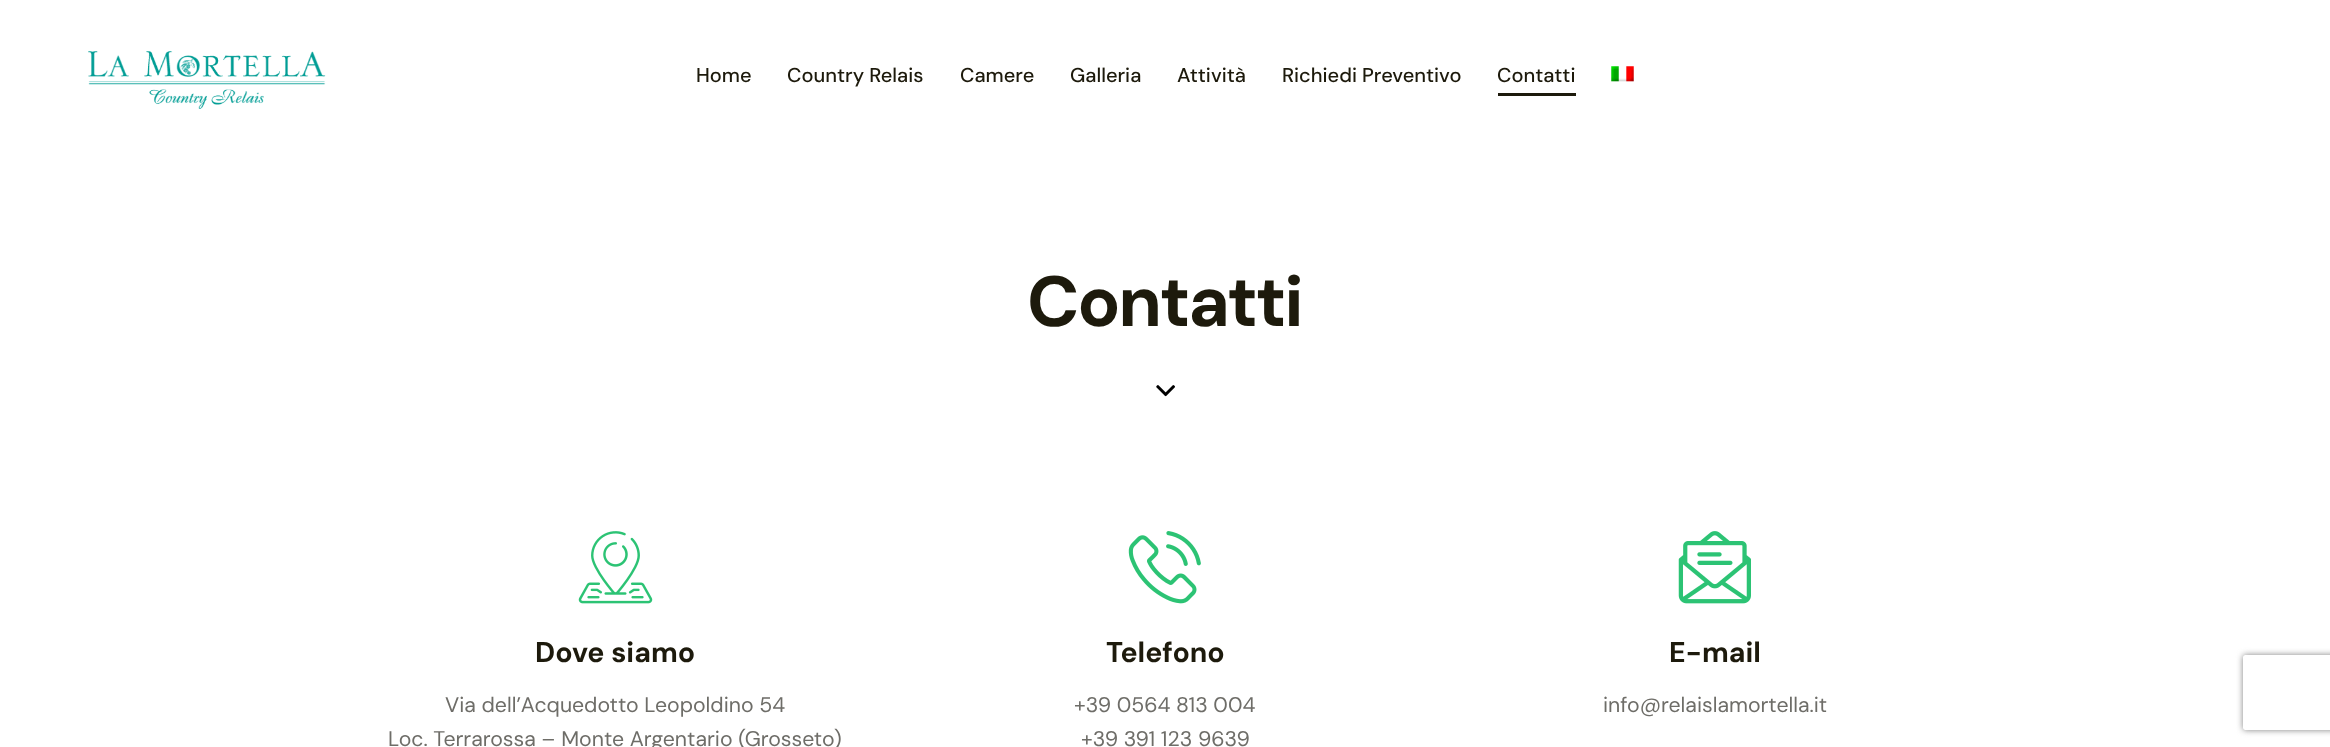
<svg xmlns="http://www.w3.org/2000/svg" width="2330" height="747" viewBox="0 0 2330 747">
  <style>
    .t1 { font: 500 20px DM Sans; fill: #1d1a0c; }
    .t2 { font: bold 71px DM Sans; letter-spacing: -2.25px; fill: #1d1a0c; }
    .t3 { font: bold 28.5px DM Sans; fill: #1d1a0c; }
    .t4 { font: 21.25px DM Sans; fill: #6e6d68; }
  </style>
  <defs>
    <clipPath id="clip1"><path d="M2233 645H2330V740H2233ZM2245.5 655H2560.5C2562 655 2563 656 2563 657.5V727.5C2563 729 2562 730 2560.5 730H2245.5C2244 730 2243 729 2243 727.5V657.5C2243 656 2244 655 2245.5 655Z" clip-rule="evenodd"/></clipPath>
  </defs>
  <rect width="100%" height="100%" fill="#fff"/>
  <image x="88" y="51" width="238" height="58" href="images/1.png"/>
  <text x="696" y="82" class="t1">Home</text>
  <text x="787" y="82" class="t1">Country Relais</text>
  <text x="960" y="82" class="t1">Camere</text>
  <text x="1070" y="82" class="t1">Galleria</text>
  <text x="1177" y="82" class="t1">Attività</text>
  <text x="1282" y="82" class="t1">Richiedi Preventivo</text>
  <text x="1497" y="82" class="t1">Contatti</text>
  <rect x="1498" y="93" width="78" height="3" fill="#1d1a0c"/>
  <image x="1611" y="66" width="23" height="16" href="images/2.png"/>
  <text x="1027" y="326" class="t2">Contatti</text>
  <image x="1156" y="385" width="19" height="12" href="images/3.png"/>
  <image x="578" y="531" width="75" height="73" href="images/4.png"/>
  <text x="535" y="662" class="t3">Dove siamo</text>
  <text x="445" y="712" class="t4">Via dell’Acquedotto Leopoldino 54</text>
  <text x="388" y="746" class="t4">Loc. Terrarossa – Monte Argentario (Grosseto)</text>
  <image x="1128" y="531" width="73" height="73" href="images/5.png"/>
  <text x="1106" y="662" class="t3">Telefono</text>
  <text x="1074" y="712" class="t4">+39 0564 813 004</text>
  <text x="1081" y="746" class="t4">+39 391 123 9639</text>
  <image x="1678" y="531" width="73" height="73" href="images/6.png"/>
  <text x="1669" y="662" class="t3">E-mail</text>
  <text x="1603" y="712" class="t4">info@relaislamortella.it</text>
  <g clip-path="url(#clip1)">
    <rect x="2243" y="655" width="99" height="75" rx="2.5" fill="#808080" filter="blur(3px)"/>
  </g>
</svg>
